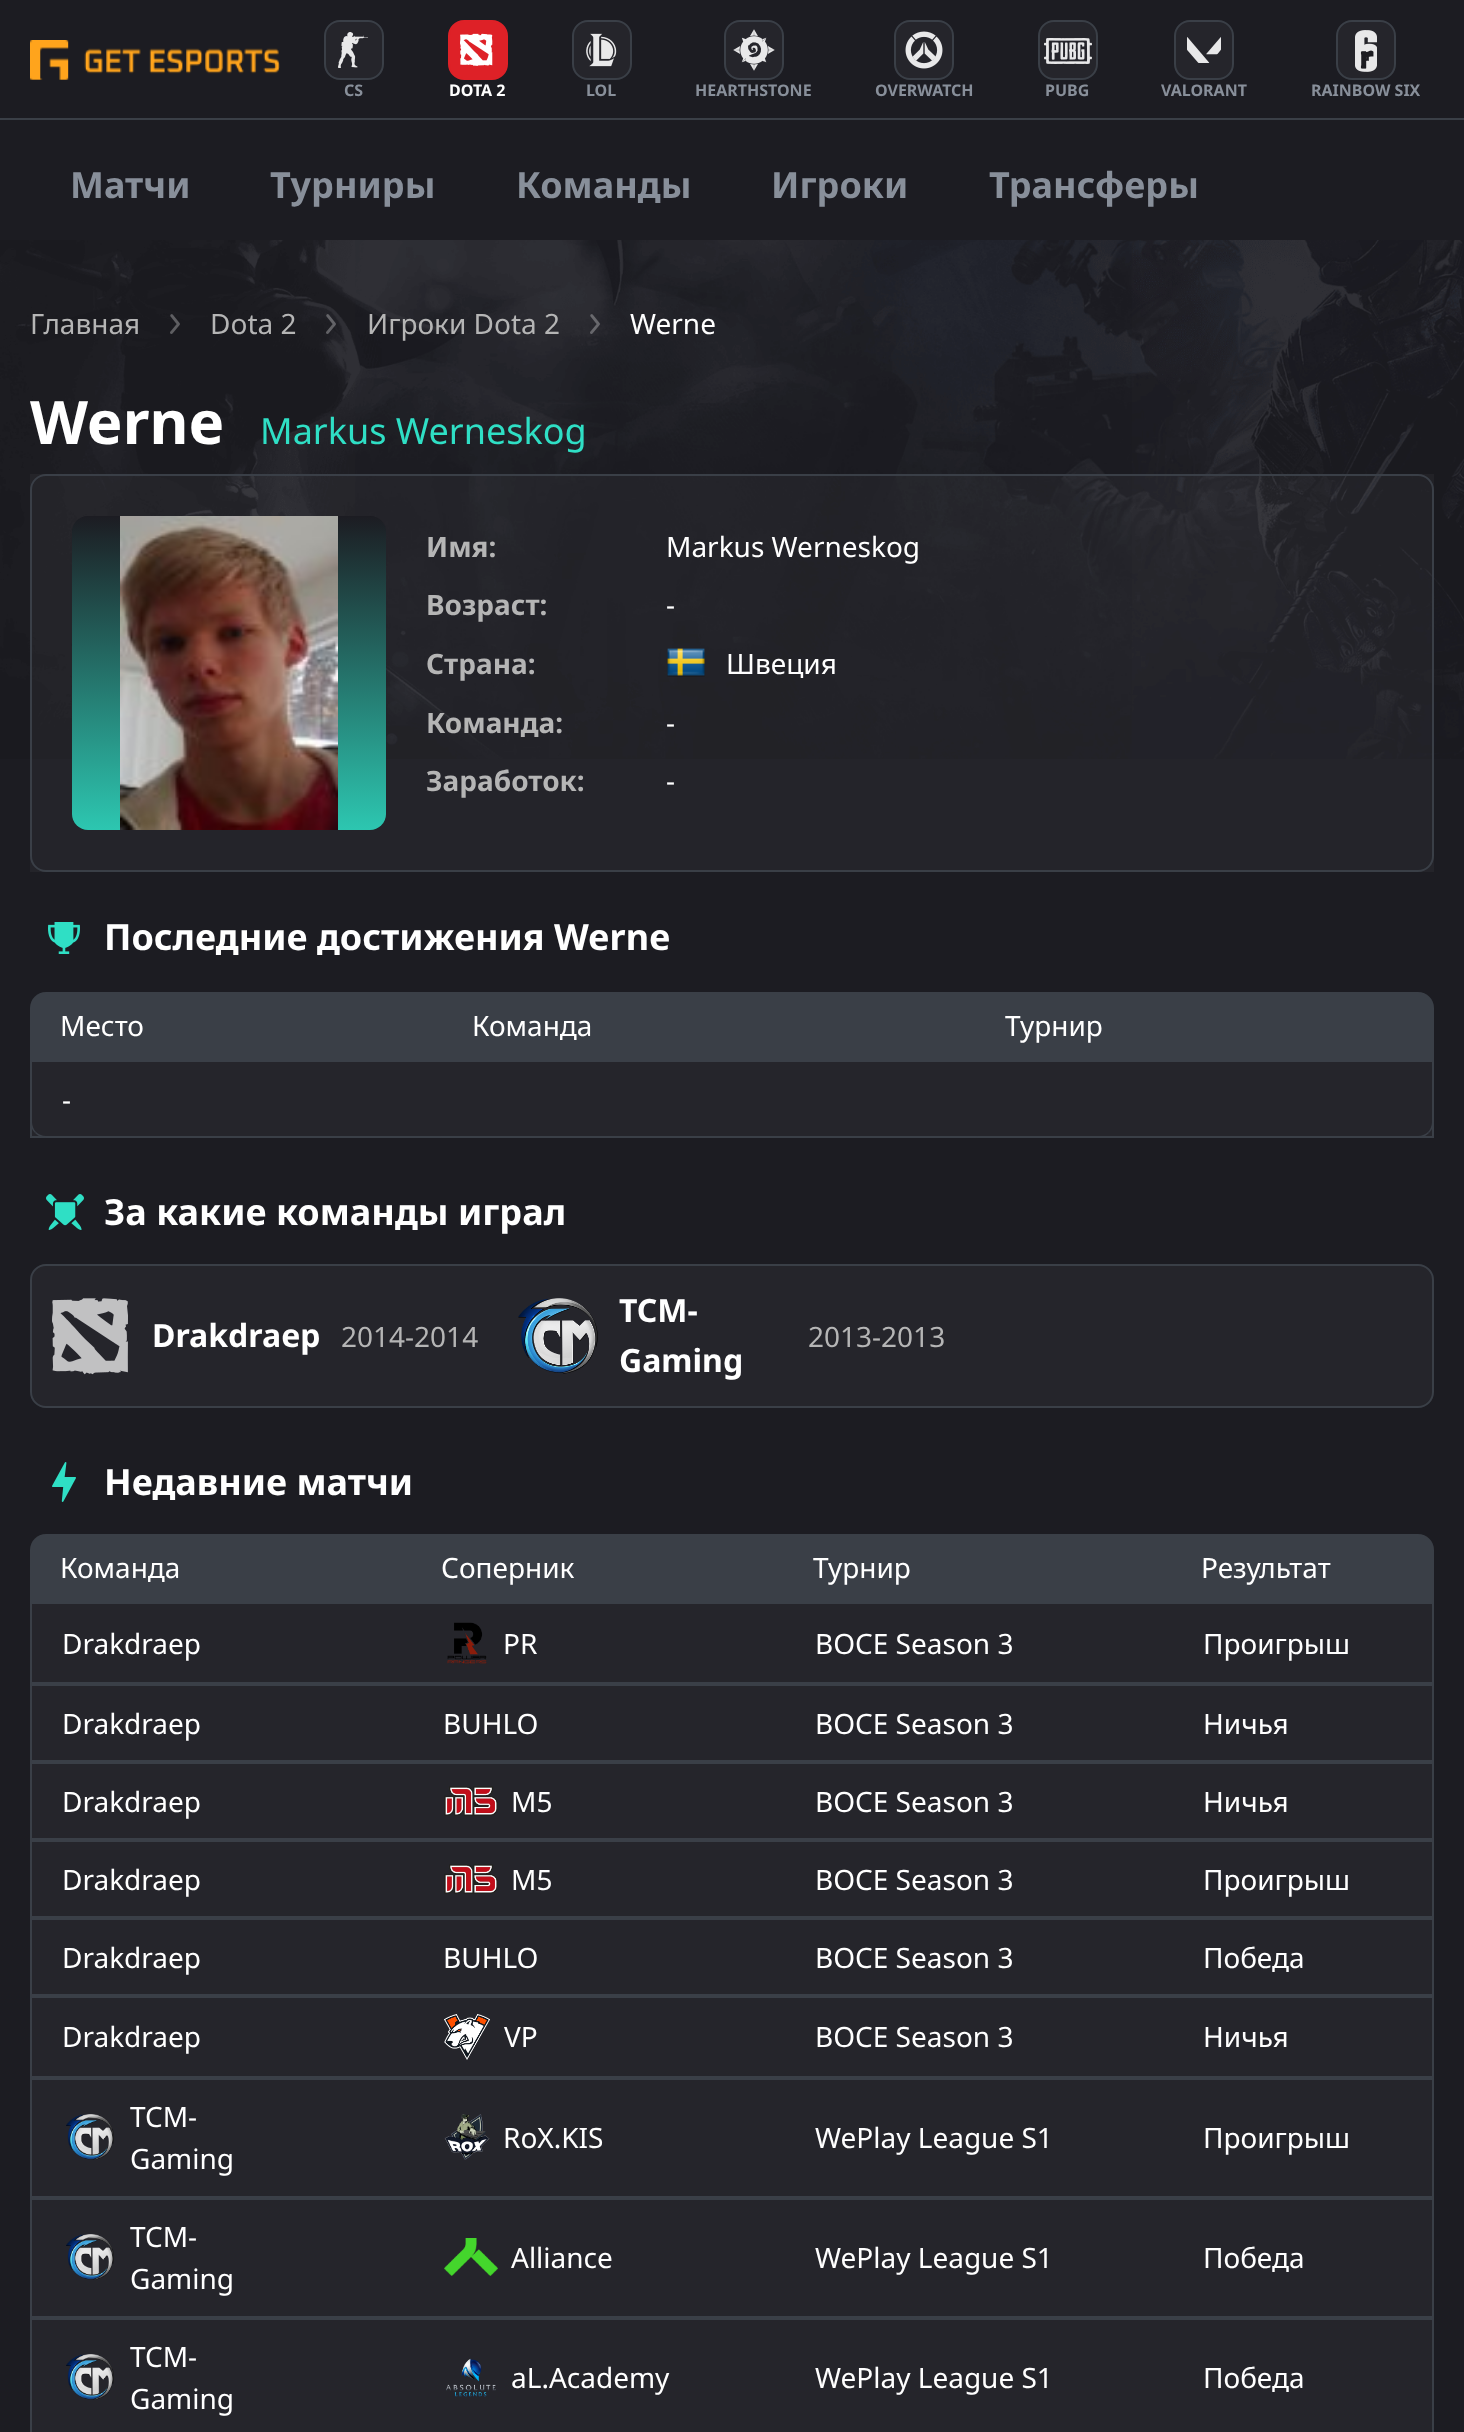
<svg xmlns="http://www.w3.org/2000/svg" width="1464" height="2432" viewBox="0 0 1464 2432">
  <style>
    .t1 { font: bold 16px Noto Sans; fill: #fff; }
    .t2 { font: bold 36px Noto Sans; fill: #888f9a; }
    .t3 { font: bold 16px Noto Sans; fill: #888f9a; }
    .t4 { font: 28px Noto Sans; fill: #b5b5b5; }
    .t5 { font: 28px Noto Sans; fill: #fff; }
    .t6 { font: bold 60px Noto Sans; fill: #fff; }
    .t7 { font: 36px Noto Sans; fill: #2fdfc5; }
    .t8 { font: bold 28px Noto Sans; fill: #b5b5b5; }
    .t9 { font: bold 36px Noto Sans; fill: #fff; }
    .t10 { font: bold 32px Noto Sans; fill: #fff; }
  </style>
  <defs>
    <linearGradient id="g1" gradientUnits="userSpaceOnUse" x1="229" y1="875" x2="229" y2="516"><stop offset="0" stop-color="#2fdfc5"/><stop offset="1" stop-color="#2fdfc5" stop-opacity="0"/></linearGradient>
  </defs>
  <rect width="100%" height="100%" fill="#1c1c22"/>
  <image x="0" y="240" width="1464" height="519" href="images/1.png"/>
  <image x="30" y="40" width="250" height="40" href="images/2.png"/>
  <rect x="449" y="21" width="58" height="58" rx="15" fill="#de2127" stroke="#de2127" stroke-width="2"/>
  <image x="460" y="33" width="33" height="33" href="images/3.png"/>
  <text x="449" y="96" class="t1">DOTA 2</text>
  <text x="70" y="198" class="t2">Матчи</text>
  <text x="270" y="198" class="t2">Турниры</text>
  <text x="516" y="198" class="t2">Команды</text>
  <text x="771" y="198" class="t2">Игроки</text>
  <text x="989" y="198" class="t2">Трансферы</text>
  <rect x="325" y="21" width="58" height="58" rx="15" fill="#25252b" stroke="#3a3f47" stroke-width="2"/>
  <image x="338" y="32" width="30" height="36" href="images/4.png"/>
  <text x="344" y="96" class="t3">CS</text>
  <rect x="573" y="21" width="58" height="58" rx="15" fill="#25252b" stroke="#3a3f47" stroke-width="2"/>
  <image x="586" y="33" width="31" height="34" href="images/5.png"/>
  <text x="586" y="96" class="t3">LOL</text>
  <rect x="725" y="21" width="58" height="58" rx="15" fill="#25252b" stroke="#3a3f47" stroke-width="2"/>
  <image x="733" y="29" width="42" height="42" href="images/6.png"/>
  <text x="695" y="96" class="t3">HEARTHSTONE</text>
  <rect x="895" y="21" width="58" height="58" rx="15" fill="#25252b" stroke="#3a3f47" stroke-width="2"/>
  <image x="905" y="31" width="38" height="38" href="images/7.png"/>
  <text x="875" y="96" class="t3">OVERWATCH</text>
  <rect x="1039" y="21" width="58" height="58" rx="15" fill="#25252b" stroke="#3a3f47" stroke-width="2"/>
  <image x="1044" y="38" width="48" height="26" href="images/8.png"/>
  <text x="1045" y="96" class="t3">PUBG</text>
  <rect x="1175" y="21" width="58" height="58" rx="15" fill="#25252b" stroke="#3a3f47" stroke-width="2"/>
  <image x="1187" y="37" width="34" height="26" href="images/9.png"/>
  <text x="1161" y="96" class="t3">VALORANT</text>
  <rect x="1337" y="21" width="58" height="58" rx="15" fill="#25252b" stroke="#3a3f47" stroke-width="2"/>
  <image x="1355" y="30" width="22" height="42" href="images/10.png"/>
  <text x="1311" y="96" class="t3">RAINBOW SIX</text>
  <rect x="0" y="118" width="1464" height="2" fill="#3a3f47"/>
  <text x="30" y="334" class="t4">Главная</text>
  <image x="170" y="314" width="10" height="20" href="images/11.png"/>
  <text x="210" y="334" class="t4">Dota 2</text>
  <image x="326" y="314" width="10" height="20" href="images/12.png"/>
  <text x="367" y="334" class="t4">Игроки Dota 2</text>
  <image x="590" y="314" width="10" height="20" href="images/13.png"/>
  <text x="630" y="334" class="t5">Werne</text>
  <text x="30" y="444" class="t6">Werne</text>
  <text x="260" y="444" class="t7">Markus Werneskog</text>
  <rect x="30" y="474" width="1404" height="398" fill="#ffffff0a"/>
  <rect x="31" y="475" width="1402" height="396" rx="15" fill="none" stroke="#3a3f47" stroke-width="2"/>
  <rect x="72" y="516" width="314" height="314" rx="16" fill="#1c1c22"/>
  <rect x="72" y="516" width="314" height="314" rx="16" fill="url(#g1)"/>
  <image x="120" y="516" width="218" height="314" href="images/14.png"/>
  <text x="426" y="557" class="t8">Имя:</text>
  <text x="666" y="557" class="t5">Markus Werneskog</text>
  <text x="426" y="615" class="t8">Возраст:</text>
  <text x="666" y="615" class="t5">-</text>
  <text x="426" y="674" class="t8">Страна:</text>
  <image x="667" y="648" width="38" height="29" href="images/15.png"/>
  <text x="726" y="674" class="t5">Швеция</text>
  <text x="426" y="733" class="t8">Команда:</text>
  <text x="666" y="733" class="t5">-</text>
  <text x="426" y="791" class="t8">Заработок:</text>
  <text x="666" y="791" class="t5">-</text>
  <image x="48" y="922" width="32" height="32" href="images/16.png"/>
  <text x="104" y="950" class="t9">Последние достижения Werne</text>
  <path d="M46 992H442V1060H30V1008C30 999 37 992 46 992Z" fill="#3a3f47"/>
  <text x="60" y="1036" class="t5">Место</text>
  <rect x="442" y="992" width="534" height="68" fill="#3a3f47"/>
  <text x="472" y="1036" class="t5">Команда</text>
  <path d="M976 992H1418C1427 992 1434 999 1434 1008V1060H976Z" fill="#3a3f47"/>
  <text x="1005" y="1036" class="t5">Турнир</text>
  <rect x="31" y="1061" width="1402" height="76" fill="#25252b" stroke="#3a3f47" stroke-width="2"/>
  <path d="M442 1138L440 1136H46C42 1136 38 1134 36 1132L35 1133C38 1136 42 1138 46 1138Z" fill="#3a3f47"/>
  <path d="M32 1062L30 1060V1122C30 1126 32 1130 35 1133L36 1132C34 1130 32 1126 32 1122Z" fill="#3a3f47"/>
  <text x="62" y="1110" class="t5">-</text>
  <path d="M1434 1060L1432 1062V1122C1432 1126 1430 1130 1428 1132L1429 1133C1432 1130 1434 1126 1434 1122Z" fill="#3a3f47"/>
  <path d="M1418 1138C1422 1138 1426 1136 1429 1133L1428 1132C1426 1134 1422 1136 1418 1136H978L976 1138Z" fill="#3a3f47"/>
  <image x="46" y="1194" width="38" height="36" href="images/17.png"/>
  <text x="104" y="1225" class="t9">За какие команды играл</text>
  <rect x="31" y="1265" width="1402" height="142" rx="15" fill="#25252b" stroke="#3a3f47" stroke-width="2"/>
  <image x="52" y="1298" width="76" height="77" href="images/18.png"/>
  <text x="152" y="1347" class="t10">Drakdraep</text>
  <text x="341" y="1347" class="t4">2014-2014</text>
  <image x="518" y="1298" width="80" height="76" href="images/19.png"/>
  <text x="619" y="1322" class="t10">TCM-</text>
  <text x="619" y="1372" class="t10">Gaming</text>
  <text x="808" y="1347" class="t4">2013-2013</text>
  <image x="52" y="1462" width="24" height="40" href="images/20.png"/>
  <text x="104" y="1495" class="t9">Недавние матчи</text>
  <path d="M46 1534H412V1602H30V1550C30 1541 37 1534 46 1534Z" fill="#3a3f47"/>
  <text x="60" y="1578" class="t5">Команда</text>
  <rect x="412" y="1534" width="758" height="68" fill="#3a3f47"/>
  <text x="441" y="1578" class="t5">Соперник</text>
  <text x="813" y="1578" class="t5">Турнир</text>
  <path d="M1170 1534H1418C1427 1534 1434 1541 1434 1550V1602H1170Z" fill="#3a3f47"/>
  <text x="1201" y="1578" class="t5">Результат</text>
  <rect x="31" y="1603" width="1402" height="80" fill="#25252b" stroke="#3a3f47" stroke-width="2"/>
  <text x="62" y="1654" class="t5">Drakdraep</text>
  <image x="447" y="1622" width="40" height="42" href="images/21.png"/>
  <text x="503" y="1654" class="t5">PR</text>
  <text x="815" y="1654" class="t5">BOCE Season 3</text>
  <text x="1203" y="1654" class="t5">Проигрыш</text>
  <rect x="31" y="1685" width="1402" height="76" fill="#25252b" stroke="#3a3f47" stroke-width="2"/>
  <text x="62" y="1734" class="t5">Drakdraep</text>
  <text x="443" y="1734" class="t5">BUHLO</text>
  <text x="815" y="1734" class="t5">BOCE Season 3</text>
  <text x="1203" y="1734" class="t5">Ничья</text>
  <rect x="31" y="1763" width="1402" height="76" fill="#25252b" stroke="#3a3f47" stroke-width="2"/>
  <text x="62" y="1812" class="t5">Drakdraep</text>
  <image x="444" y="1786" width="54" height="30" href="images/22.png"/>
  <text x="511" y="1812" class="t5">M5</text>
  <text x="815" y="1812" class="t5">BOCE Season 3</text>
  <text x="1203" y="1812" class="t5">Ничья</text>
  <rect x="31" y="1841" width="1402" height="76" fill="#25252b" stroke="#3a3f47" stroke-width="2"/>
  <text x="62" y="1890" class="t5">Drakdraep</text>
  <image x="444" y="1864" width="54" height="30" href="images/22.png"/>
  <text x="511" y="1890" class="t5">M5</text>
  <text x="815" y="1890" class="t5">BOCE Season 3</text>
  <text x="1203" y="1890" class="t5">Проигрыш</text>
  <rect x="31" y="1919" width="1402" height="76" fill="#25252b" stroke="#3a3f47" stroke-width="2"/>
  <text x="62" y="1968" class="t5">Drakdraep</text>
  <text x="443" y="1968" class="t5">BUHLO</text>
  <text x="815" y="1968" class="t5">BOCE Season 3</text>
  <text x="1203" y="1968" class="t5">Победа</text>
  <rect x="31" y="1997" width="1402" height="80" fill="#25252b" stroke="#3a3f47" stroke-width="2"/>
  <text x="62" y="2047" class="t5">Drakdraep</text>
  <image x="444" y="2014" width="46" height="46" href="images/23.png"/>
  <text x="504" y="2047" class="t5">VP</text>
  <text x="815" y="2047" class="t5">BOCE Season 3</text>
  <text x="1203" y="2047" class="t5">Ничья</text>
  <rect x="31" y="2079" width="1402" height="118" fill="#25252b" stroke="#3a3f47" stroke-width="2"/>
  <image x="66" y="2114" width="48" height="46" href="images/24.png"/>
  <text x="130" y="2127" class="t5">TCM-</text>
  <text x="130" y="2169" class="t5">Gaming</text>
  <image x="444" y="2114" width="46" height="46" href="images/25.png"/>
  <text x="503" y="2148" class="t5">RoX.KIS</text>
  <text x="815" y="2148" class="t5">WePlay League S1</text>
  <text x="1203" y="2148" class="t5">Проигрыш</text>
  <rect x="31" y="2199" width="1402" height="118" fill="#25252b" stroke="#3a3f47" stroke-width="2"/>
  <image x="66" y="2234" width="48" height="46" href="images/24.png"/>
  <text x="130" y="2247" class="t5">TCM-</text>
  <text x="130" y="2289" class="t5">Gaming</text>
  <image x="444" y="2238" width="54" height="38" href="images/26.png"/>
  <text x="511" y="2268" class="t5">Alliance</text>
  <text x="815" y="2268" class="t5">WePlay League S1</text>
  <text x="1203" y="2268" class="t5">Победа</text>
  <rect x="31" y="2319" width="1402" height="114" fill="#25252b" stroke="#3a3f47" stroke-width="2"/>
  <image x="66" y="2354" width="48" height="46" href="images/27.png"/>
  <text x="130" y="2367" class="t5">TCM-</text>
  <text x="130" y="2409" class="t5">Gaming</text>
  <image x="446" y="2358" width="50" height="39" href="images/28.png"/>
  <text x="511" y="2388" class="t5">aL.Academy</text>
  <text x="815" y="2388" class="t5">WePlay League S1</text>
  <text x="1203" y="2388" class="t5">Победа</text>
</svg>
